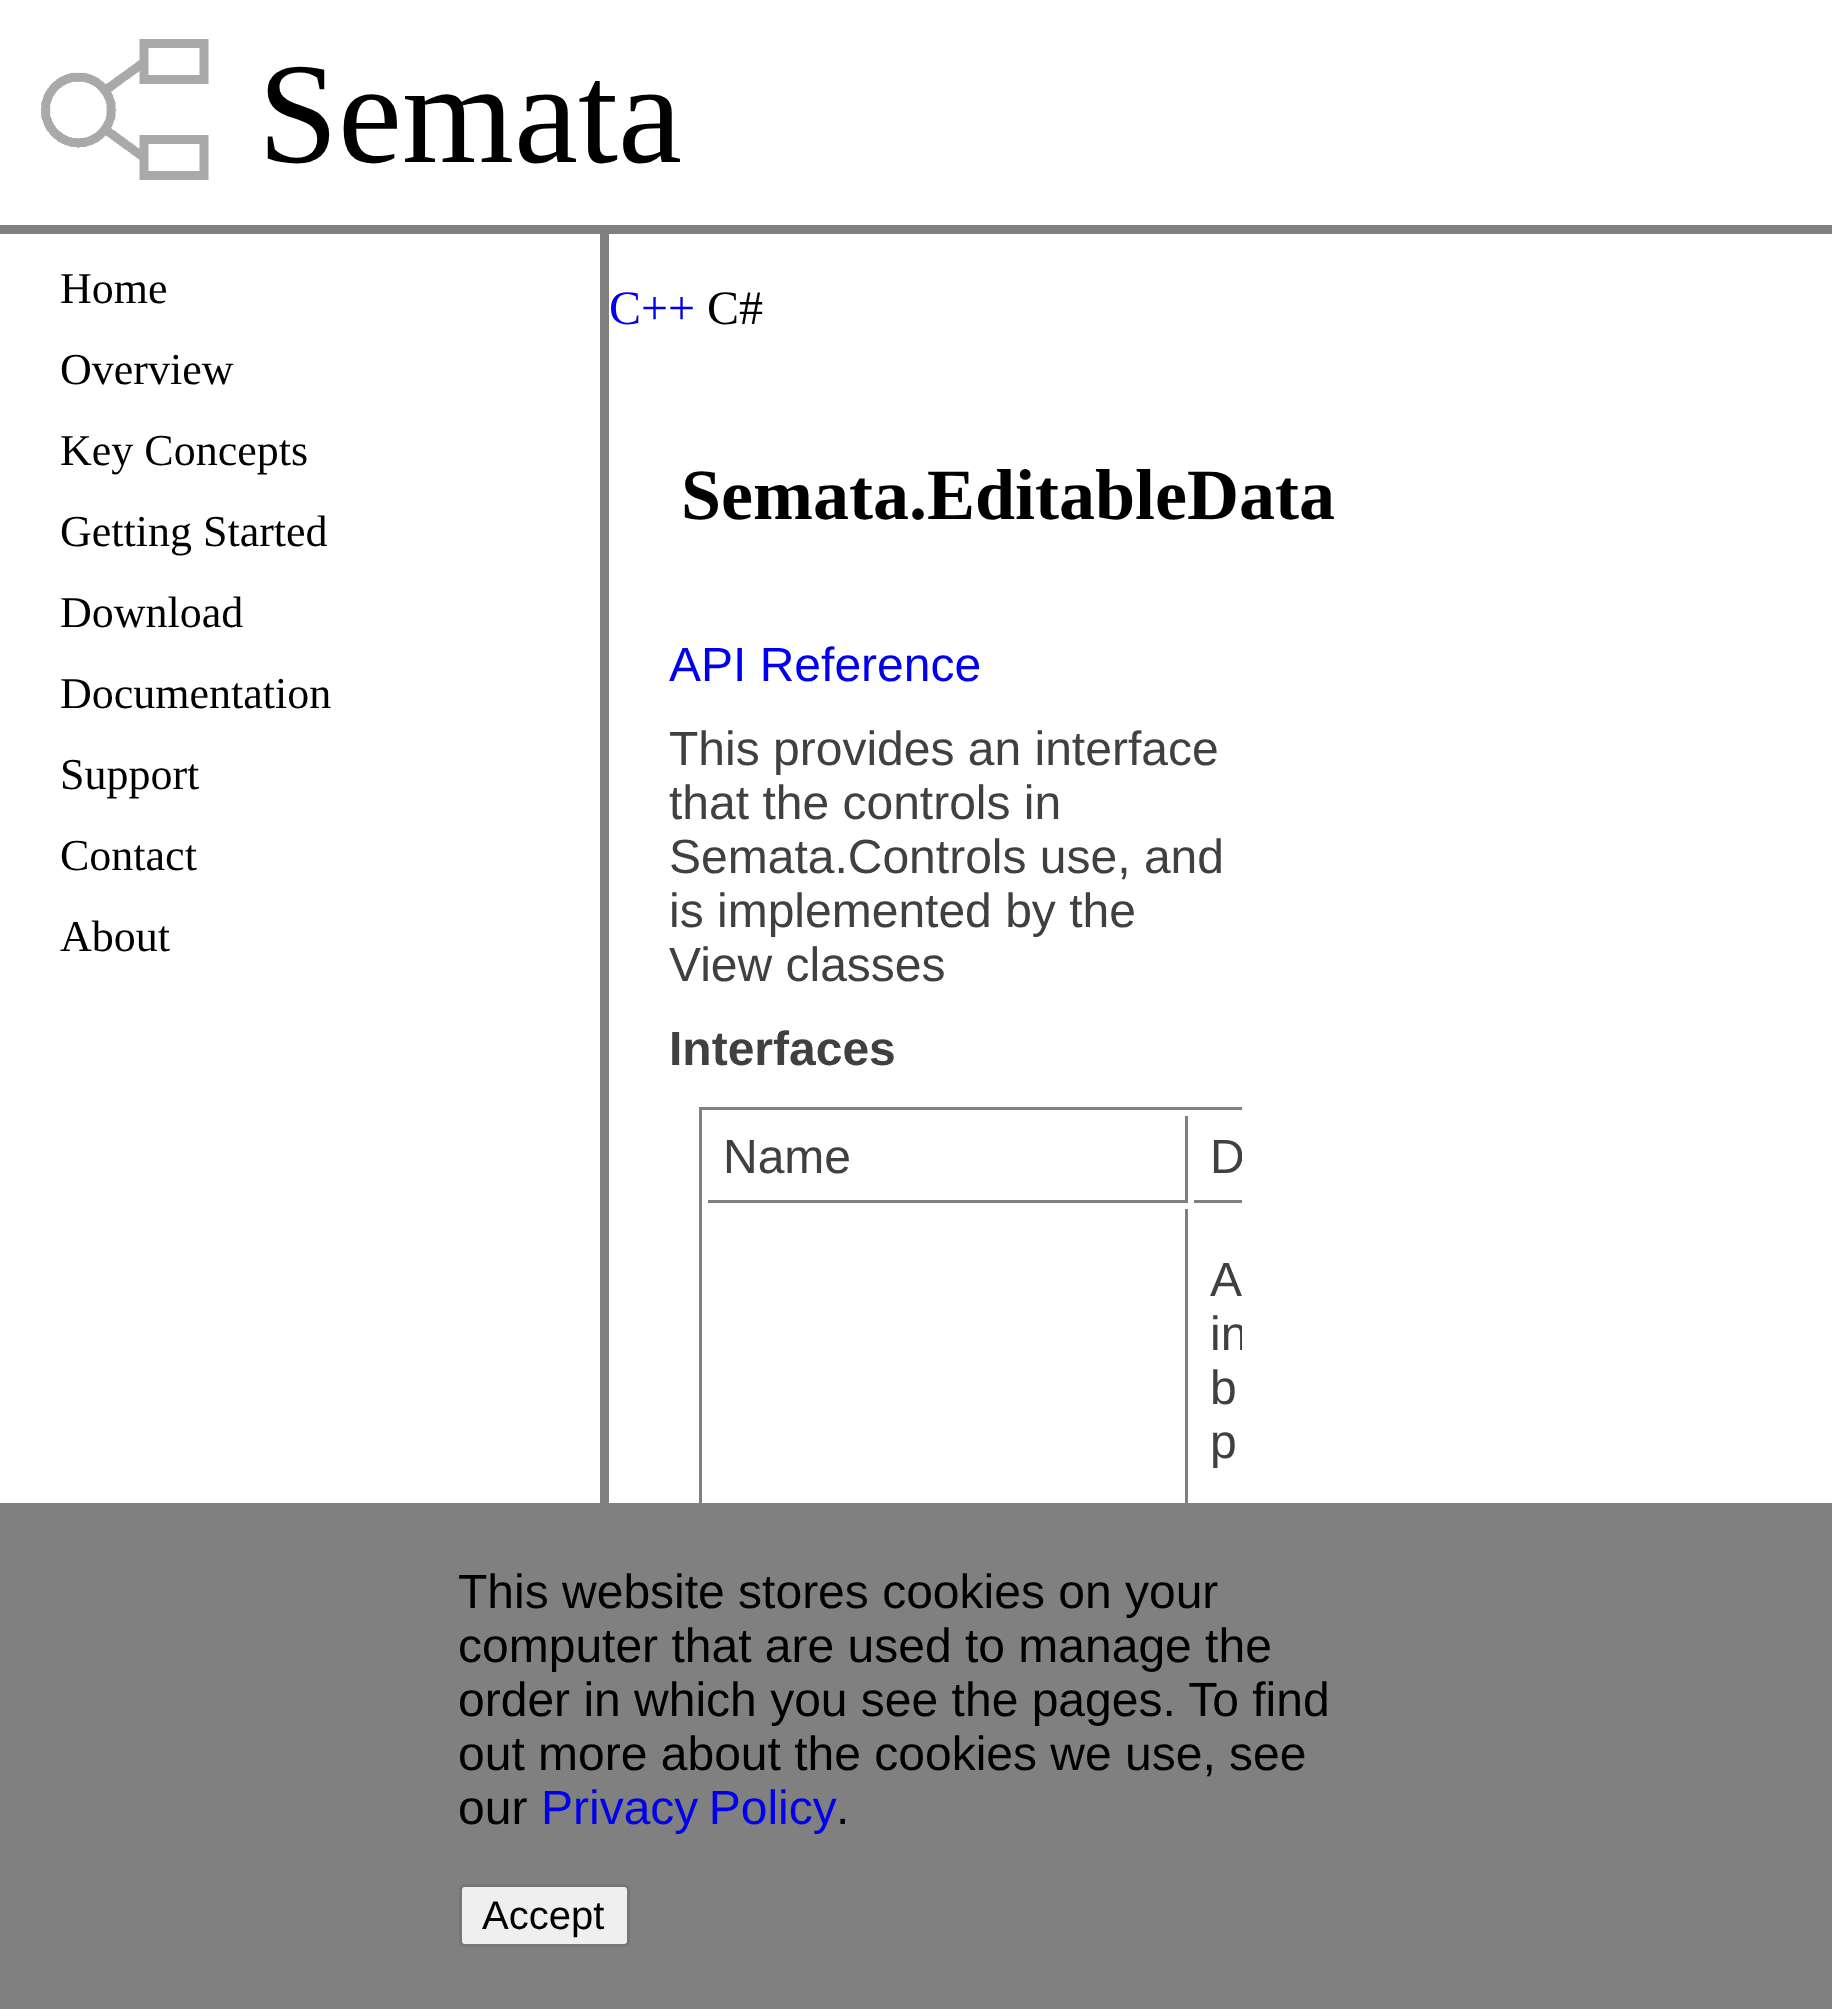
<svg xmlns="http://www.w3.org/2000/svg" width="1832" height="2009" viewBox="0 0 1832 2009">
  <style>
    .t1 { font: 144px Liberation Serif; fill: #000; }
    .t2 { font: 44px Liberation Serif; fill: #000; }
    .t3 { font: 48px Liberation Serif; fill: #00e; }
    .t4 { font: 48px Liberation Serif; fill: #000; }
    .t5 { font: bold 72px Liberation Serif; fill: #000; }
    .t6 { font: 48px Liberation Sans; fill: #00e; }
    .t7 { font: 48px Liberation Sans; fill: #404040; }
    .t8 { font: bold 48px Liberation Sans; fill: #404040; }
    .t9 { font: 48px Liberation Sans; fill: #000; }
    .t10 { font: 40px Liberation Sans; fill: #000; }
  </style>
  <defs>
    <clipPath id="clip1"><rect x="609" y="609" width="633" height="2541"/></clipPath>
  </defs>
  <rect width="100%" height="100%" fill="#fff"/>
  <rect x="0" y="225" width="1832" height="9" fill="#808080"/>
  <image x="40" y="39" width="169" height="141" href="images/1.png"/>
  <text x="258" y="162" class="t1">Semata</text>
  <text x="60" y="303" class="t2">Home</text>
  <text x="60" y="384" class="t2">Overview</text>
  <text x="60" y="465" class="t2">Key Concepts</text>
  <text x="60" y="546" class="t2">Getting Started</text>
  <text x="60" y="627" class="t2">Download</text>
  <text x="60" y="708" class="t2">Documentation</text>
  <text x="60" y="789" class="t2">Support</text>
  <text x="60" y="870" class="t2">Contact</text>
  <text x="60" y="951" class="t2">About</text>
  <rect x="600" y="234" width="9" height="1269" fill="#808080"/>
  <text x="609" y="324" class="t3">C++</text>
  <text x="707" y="324" class="t4">C#</text>
  <text x="681" y="519" class="t5">Semata.EditableData</text>
  <text x="669" y="681" class="t6">API Reference</text>
  <text x="669" y="765" class="t7">This provides an interface</text>
  <text x="669" y="819" class="t7">that the controls in</text>
  <text x="669" y="873" class="t7">Semata.Controls use, and</text>
  <text x="669" y="927" class="t7">is implemented by the</text>
  <text x="669" y="981" class="t7">View classes</text>
  <text x="669" y="1065" class="t8">Interfaces</text>
  <rect x="699" y="1107" width="543" height="3" fill="#808080"/>
  <rect x="699" y="1107" width="3" height="396" fill="#808080"/>
  <rect x="1185" y="1116" width="3" height="87" fill="#808080"/>
  <rect x="708" y="1200" width="480" height="3" fill="#808080"/>
  <text x="723" y="1173" class="t7">Name</text>
  <rect x="1194" y="1200" width="48" height="3" fill="#808080"/>
  <g clip-path="url(#clip1)">
    <text x="1210" y="1173" class="t7">D</text>
  </g>
  <rect x="1185" y="1209" width="3" height="294" fill="#808080"/>
  <text x="1210" y="1296" class="t7">A</text>
  <g clip-path="url(#clip1)">
    <text x="1210" y="1350" class="t7">in</text>
  </g>
  <text x="1210" y="1404" class="t7">b</text>
  <text x="1210" y="1458" class="t7">p</text>
  <rect x="0" y="1503" width="1832" height="506" fill="#808080"/>
  <text x="458" y="1608" class="t9">This website stores cookies on your</text>
  <text x="458" y="1662" class="t9">computer that are used to manage the</text>
  <text x="458" y="1716" class="t9">order in which you see the pages. To find</text>
  <text x="458" y="1770" class="t9">out more about the cookies we use, see</text>
  <text x="458" y="1824" class="t9">our</text>
  <text x="541" y="1824" word-spacing="-3" class="t6">Privacy Policy</text>
  <text x="836" y="1824" class="t9">.</text>
  <rect x="460.5" y="1885.5" width="168" height="60" rx="4.5" fill="#efefef" stroke="#767676" stroke-width="3"/>
  <text x="482" y="1929" class="t10">Accept</text>
</svg>
